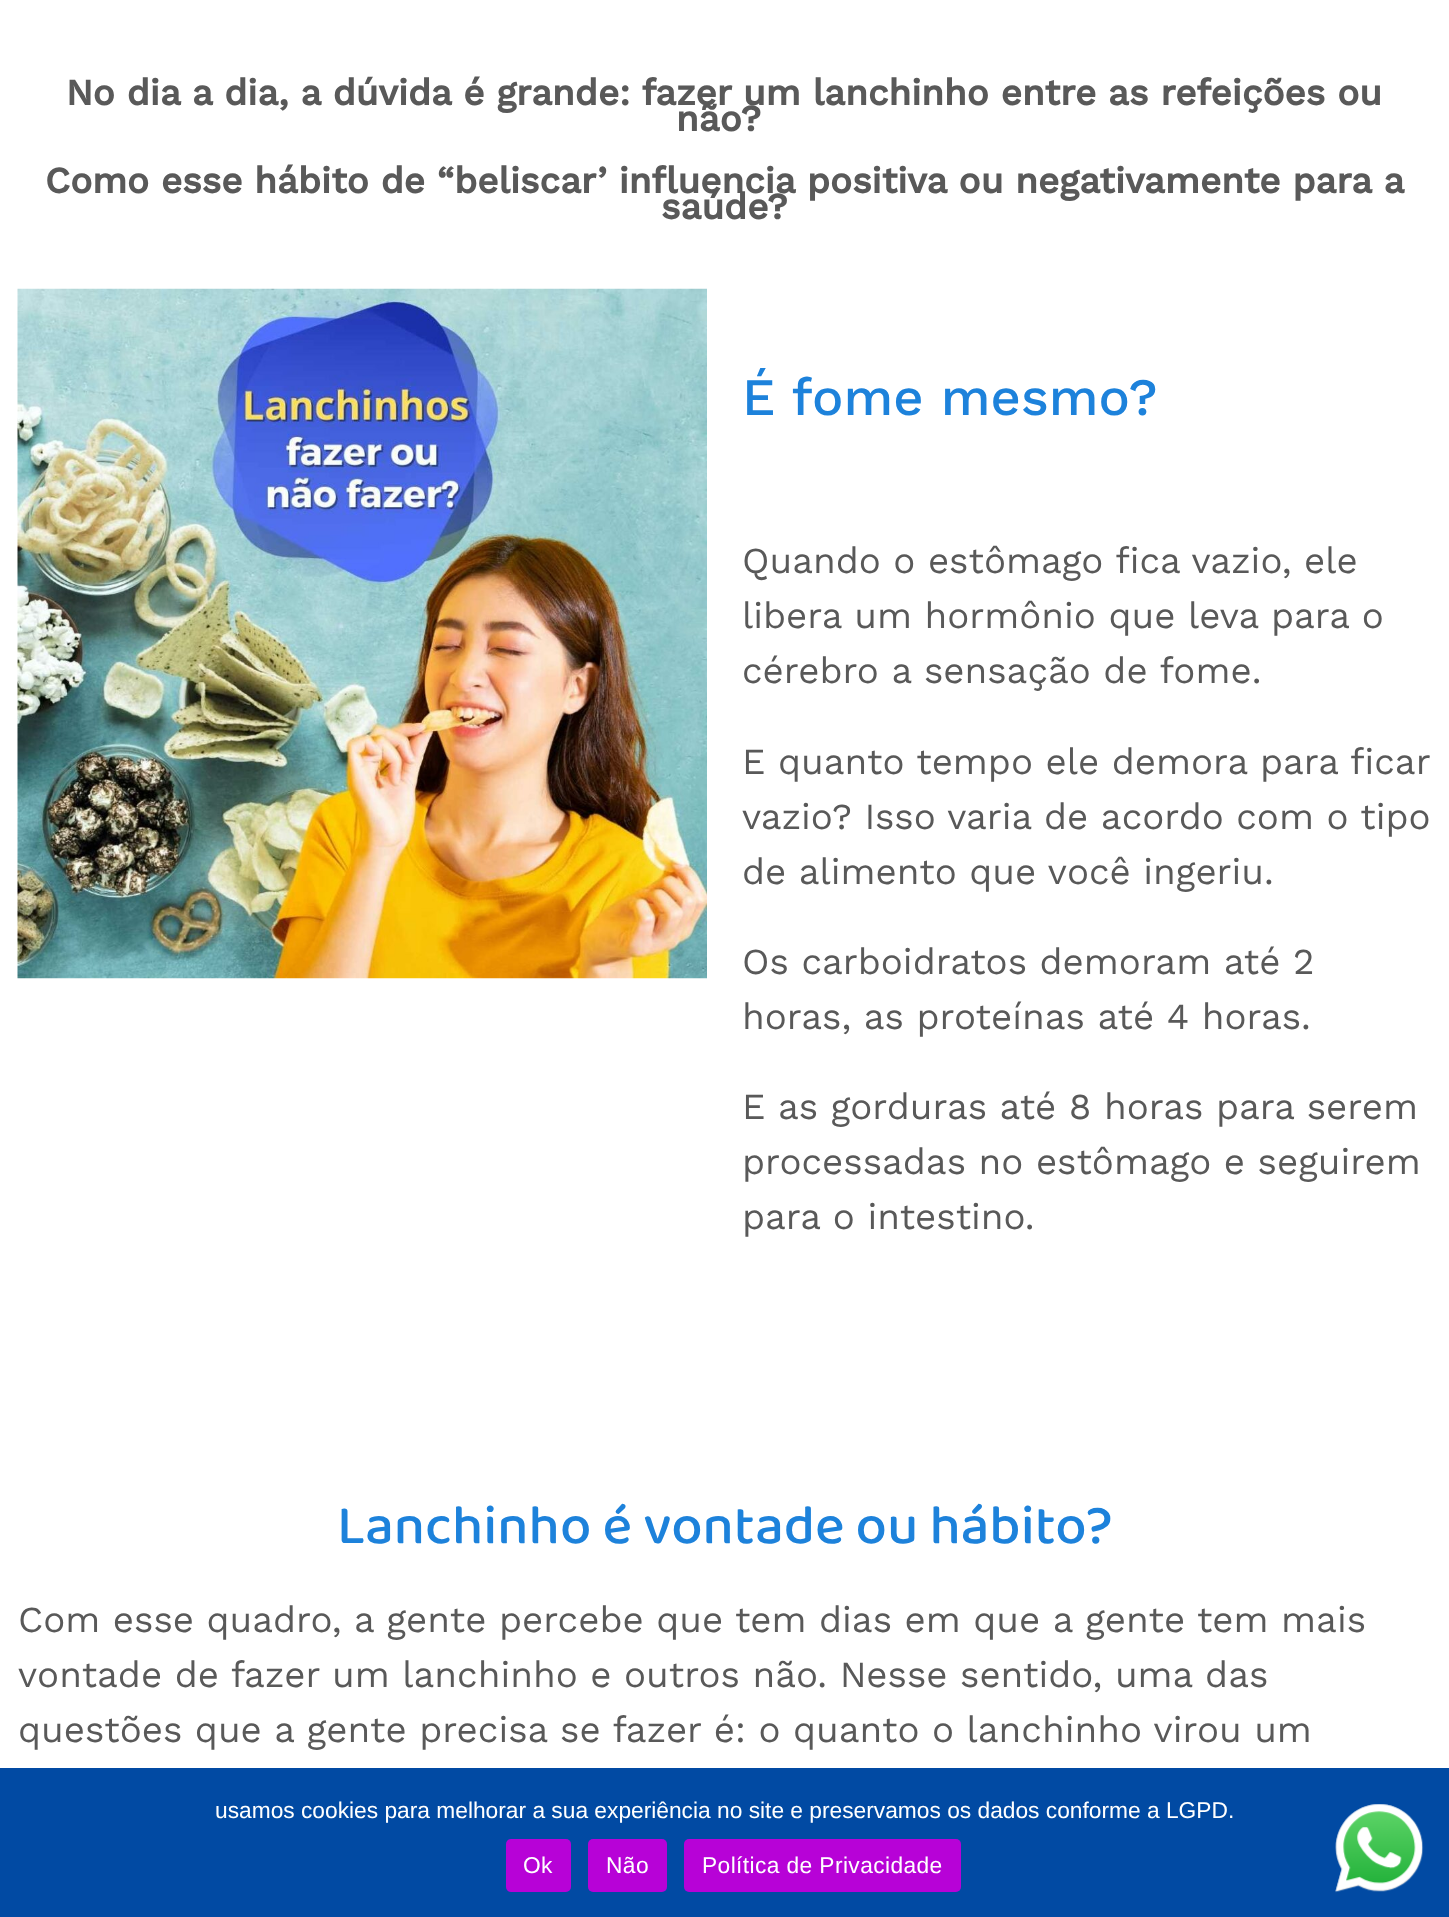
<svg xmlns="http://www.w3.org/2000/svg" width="1449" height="1917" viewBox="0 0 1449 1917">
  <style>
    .t1 { font: bold 36.75px Work Sans; fill: #595959; }
    .t2 { font: 500 52.5px Work Sans; fill: #1d82db; }
    .t3 { font: 36.75px Work Sans; fill: #595959; }
    .t4 { font: 500 56px 'Baloo Bhai 2'; fill: #1d82db; }
    .t5 { font: 22.75px Liberation Sans; fill: #fff; }
    .t6 { font: 22.75px Liberation Sans; letter-spacing: 0.4px; fill: #fff; }
  </style>
  <rect width="100%" height="100%" fill="#fff"/>
  <text x="66" y="105" class="t1">No dia a dia, a dúvida é grande: fazer um lanchinho entre as refeições ou</text>
  <text x="676" y="131" class="t1">não?</text>
  <text x="45" y="193" class="t1">Como esse hábito de “beliscar’ influencia positiva ou negativamente para a</text>
  <text x="661" y="219" class="t1">saúde?</text>
  <image x="17" y="288" width="690" height="691" href="images/1.png"/>
  <text x="742" y="415" class="t2">É fome mesmo?</text>
  <text x="742" y="573" class="t3">Quando o estômago fica vazio, ele</text>
  <text x="742" y="628" class="t3">libera um hormônio que leva para o</text>
  <text x="742" y="683" class="t3">cérebro a sensação de fome.</text>
  <text x="742" y="774" class="t3">E quanto tempo ele demora para ficar</text>
  <text x="742" y="829" class="t3">vazio? Isso varia de acordo com o tipo</text>
  <text x="742" y="884" class="t3">de alimento que você ingeriu.</text>
  <text x="742" y="974" class="t3">Os carboidratos demoram até 2</text>
  <text x="742" y="1029" class="t3">horas, as proteínas até 4 horas.</text>
  <text x="742" y="1119" class="t3">E as gorduras até 8 horas para serem</text>
  <text x="742" y="1174" class="t3">processadas no estômago e seguirem</text>
  <text x="742" y="1229" class="t3">para o intestino.</text>
  <text x="337" y="1543" class="t4">Lanchinho é vontade ou hábito?</text>
  <text x="18" y="1632" class="t3">Com esse quadro, a gente percebe que tem dias em que a gente tem mais</text>
  <text x="18" y="1687" class="t3">vontade de fazer um lanchinho e outros não. Nesse sentido, uma das</text>
  <text x="18" y="1742" class="t3">questões que a gente precisa se fazer é: o quanto o lanchinho virou um</text>
  <rect x="0" y="1768" width="1449" height="149" fill="#014aa3"/>
  <text x="215" y="1818" class="t5">usamos cookies para melhorar a sua experiência no site e preservamos os dados conforme a LGPD.</text>
  <rect x="506" y="1839" width="65" height="53" rx="5" fill="#b702d7"/>
  <text x="523" y="1873" class="t6">Ok</text>
  <rect x="588" y="1839" width="79" height="53" rx="5" fill="#b702d7"/>
  <text x="606" y="1873" class="t6">Não</text>
  <rect x="684" y="1839" width="277" height="53" rx="5" fill="#b702d7"/>
  <text x="702" y="1873" class="t6">Política de Privacidade</text>
  <image x="1335" y="1804" width="89" height="89" href="images/2.png"/>
</svg>
